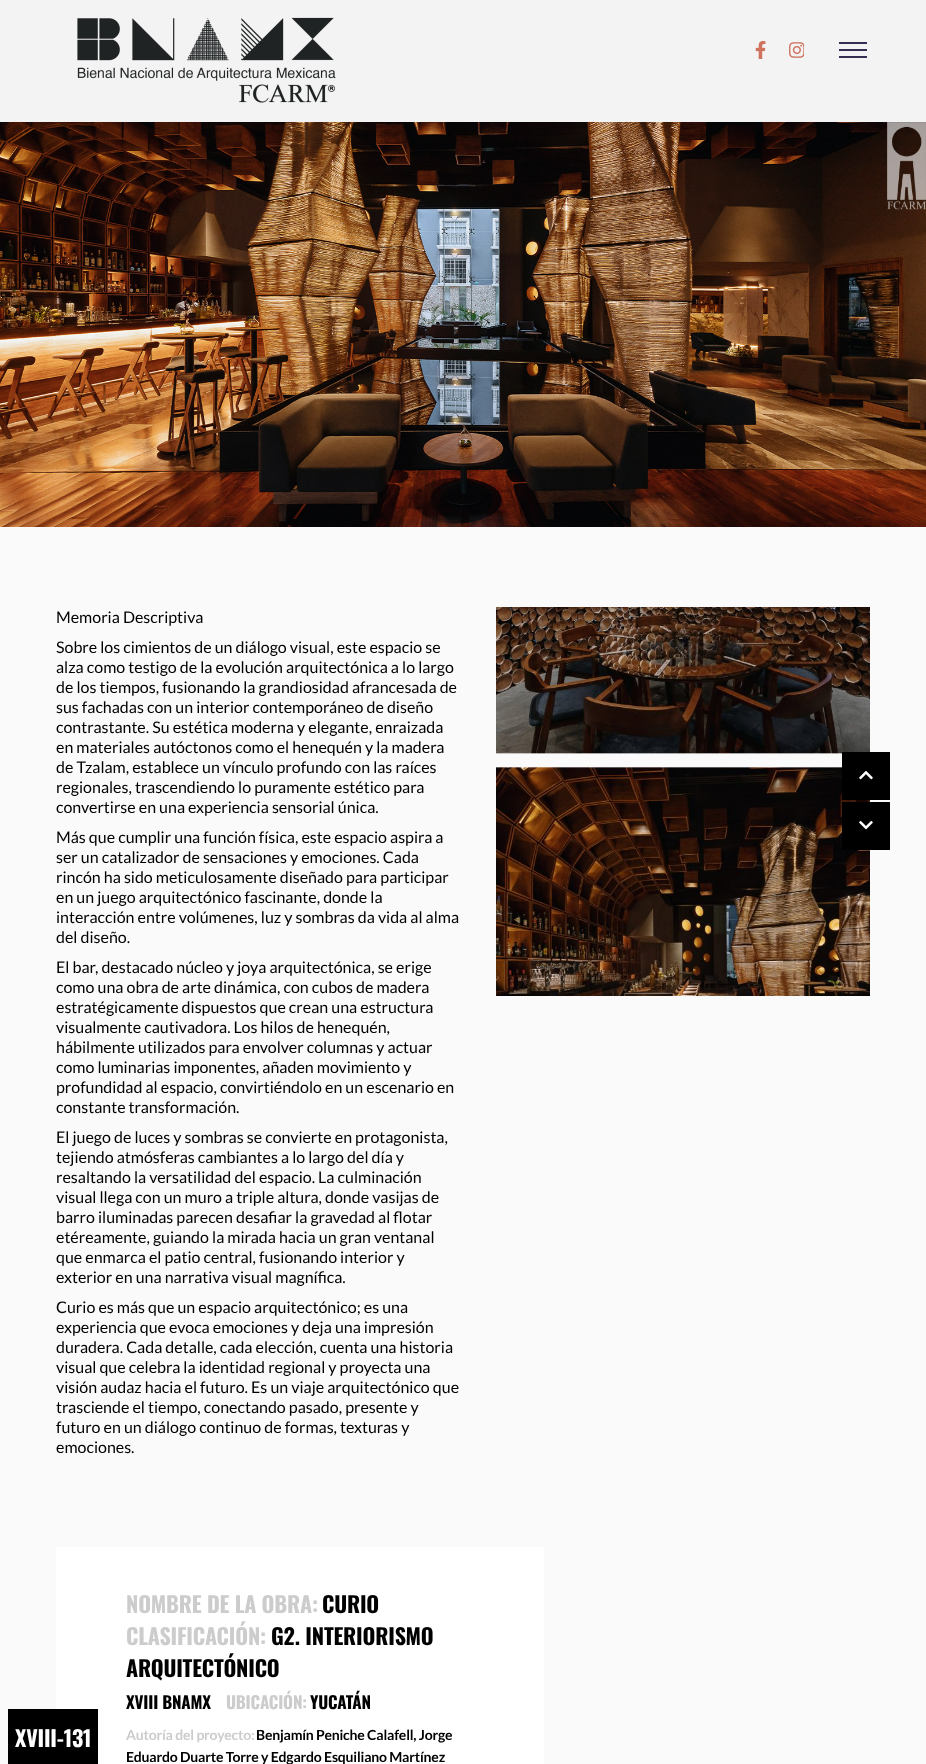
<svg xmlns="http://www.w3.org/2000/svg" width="926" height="1764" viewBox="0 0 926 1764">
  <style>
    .t1 { font: 16px Lato; fill: #000; }
    .t2 { font: bold 22px Oswald; letter-spacing: -0.2px; fill: #ccc; }
    .t3 { font: bold 22px Oswald; letter-spacing: -0.2px; fill: #000; }
    .t4 { font: bold 17px Oswald; letter-spacing: -0.2px; fill: #000; }
    .t5 { font: bold 17px Oswald; letter-spacing: -0.2px; fill: #ccc; }
    .t6 { font: bold 22px Oswald; letter-spacing: -0.2px; fill: #fff; }
    .t7 { font: bold 14px Lato; letter-spacing: -0.2px; fill: #ccc; }
    .t8 { font: bold 14px Lato; letter-spacing: -0.2px; fill: #000; }
  </style>
  <rect width="100%" height="100%" fill="#fafafa"/>
  <rect x="0" y="0" width="926" height="122" fill="#f3f3f3"/>
  <image x="77" y="17" width="259" height="86" href="images/1.png"/>
  <image x="755" y="41" width="11" height="18" href="images/2.png"/>
  <image x="789" y="42" width="15" height="16" href="images/3.png"/>
  <rect x="839" y="42" width="28" height="2" fill="#333053"/>
  <rect x="839" y="49" width="28" height="2" fill="#333053"/>
  <rect x="839" y="56" width="28" height="2" fill="#333053"/>
  <image x="0" y="122" width="926" height="405" href="images/4.png"/>
  <text x="56" y="623" class="t1">Memoria Descriptiva</text>
  <text x="56" y="653" class="t1">Sobre los cimientos de un diálogo visual, este espacio se</text>
  <text x="56" y="673" class="t1">alza como testigo de la evolución arquitectónica a lo largo</text>
  <text x="56" y="693" class="t1">de los tiempos, fusionando la grandiosidad afrancesada de</text>
  <text x="56" y="713" class="t1">sus fachadas con un interior contemporáneo de diseño</text>
  <text x="56" y="733" class="t1">contrastante. Su estética moderna y elegante, enraizada</text>
  <text x="56" y="753" class="t1">en materiales autóctonos como el henequén y la madera</text>
  <text x="56" y="773" class="t1">de Tzalam, establece un vínculo profundo con las raíces</text>
  <text x="56" y="793" class="t1">regionales, trascendiendo lo puramente estético para</text>
  <text x="56" y="813" class="t1">convertirse en una experiencia sensorial única.</text>
  <text x="56" y="843" class="t1">Más que cumplir una función física, este espacio aspira a</text>
  <text x="56" y="863" class="t1">ser un catalizador de sensaciones y emociones. Cada</text>
  <text x="56" y="883" class="t1">rincón ha sido meticulosamente diseñado para participar</text>
  <text x="56" y="903" class="t1">en un juego arquitectónico fascinante, donde la</text>
  <text x="56" y="923" class="t1">interacción entre volúmenes, luz y sombras da vida al alma</text>
  <text x="56" y="943" class="t1">del diseño.</text>
  <text x="56" y="973" class="t1">El bar, destacado núcleo y joya arquitectónica, se erige</text>
  <text x="56" y="993" class="t1">como una obra de arte dinámica, con cubos de madera</text>
  <text x="56" y="1013" class="t1">estratégicamente dispuestos que crean una estructura</text>
  <text x="56" y="1033" class="t1">visualmente cautivadora. Los hilos de henequén,</text>
  <text x="56" y="1053" class="t1">hábilmente utilizados para envolver columnas y actuar</text>
  <text x="56" y="1073" class="t1">como luminarias imponentes, añaden movimiento y</text>
  <text x="56" y="1093" class="t1">profundidad al espacio, convirtiéndolo en un escenario en</text>
  <text x="56" y="1113" class="t1">constante transformación.</text>
  <text x="56" y="1143" class="t1">El juego de luces y sombras se convierte en protagonista,</text>
  <text x="56" y="1163" class="t1">tejiendo atmósferas cambiantes a lo largo del día y</text>
  <text x="56" y="1183" class="t1">resaltando la versatilidad del espacio. La culminación</text>
  <text x="56" y="1203" class="t1">visual llega con un muro a triple altura, donde vasijas de</text>
  <text x="56" y="1223" class="t1">barro iluminadas parecen desafiar la gravedad al flotar</text>
  <text x="56" y="1243" class="t1">etéreamente, guiando la mirada hacia un gran ventanal</text>
  <text x="56" y="1263" class="t1">que enmarca el patio central, fusionando interior y</text>
  <text x="56" y="1283" class="t1">exterior en una narrativa visual magnífica.</text>
  <text x="56" y="1313" class="t1">Curio es más que un espacio arquitectónico; es una</text>
  <text x="56" y="1333" class="t1">experiencia que evoca emociones y deja una impresión</text>
  <text x="56" y="1353" class="t1">duradera. Cada detalle, cada elección, cuenta una historia</text>
  <text x="56" y="1373" class="t1">visual que celebra la identidad regional y proyecta una</text>
  <text x="56" y="1393" class="t1">visión audaz hacia el futuro. Es un viaje arquitectónico que</text>
  <text x="56" y="1413" class="t1">trasciende el tiempo, conectando pasado, presente y</text>
  <text x="56" y="1433" class="t1">futuro en un diálogo continuo de formas, texturas y</text>
  <text x="56" y="1453" class="t1">emociones.</text>
  <image x="496" y="607" width="374" height="147" href="images/5.png"/>
  <image x="496" y="767" width="374" height="229" href="images/6.png"/>
  <rect x="842" y="752" width="48" height="48" fill="#000"/>
  <image x="859" y="771" width="14" height="9" href="images/7.png"/>
  <rect x="842" y="802" width="48" height="48" fill="#000"/>
  <image x="859" y="821" width="14" height="9" href="images/8.png"/>
  <rect x="56" y="1547" width="488" height="217" fill="#fff"/>
  <text x="126" y="1613" class="t2">NOMBRE DE LA OBRA:</text>
  <text x="322" y="1613" class="t3">CURIO</text>
  <text x="126" y="1645" class="t2">CLASIFICACIÓN:</text>
  <text x="271" y="1645" class="t3">G2. INTERIORISMO</text>
  <text x="126" y="1677" class="t3">ARQUITECTÓNICO</text>
  <text x="126" y="1709" class="t4">XVIII BNAMX</text>
  <text x="226" y="1709" class="t5">UBICACIÓN:</text>
  <text x="310" y="1709" class="t4">YUCATÁN</text>
  <rect x="8" y="1709" width="90" height="55" fill="#000"/>
  <text x="15" y="1747" class="t6">XVIII-131</text>
  <text x="126" y="1740" class="t7">Autoría del proyecto:</text>
  <text x="256" y="1740" class="t8">Benjamín Peniche Calafell, Jorge</text>
  <text x="126" y="1762" class="t8">Eduardo Duarte Torre y Edgardo Esquiliano Martínez</text>
</svg>
